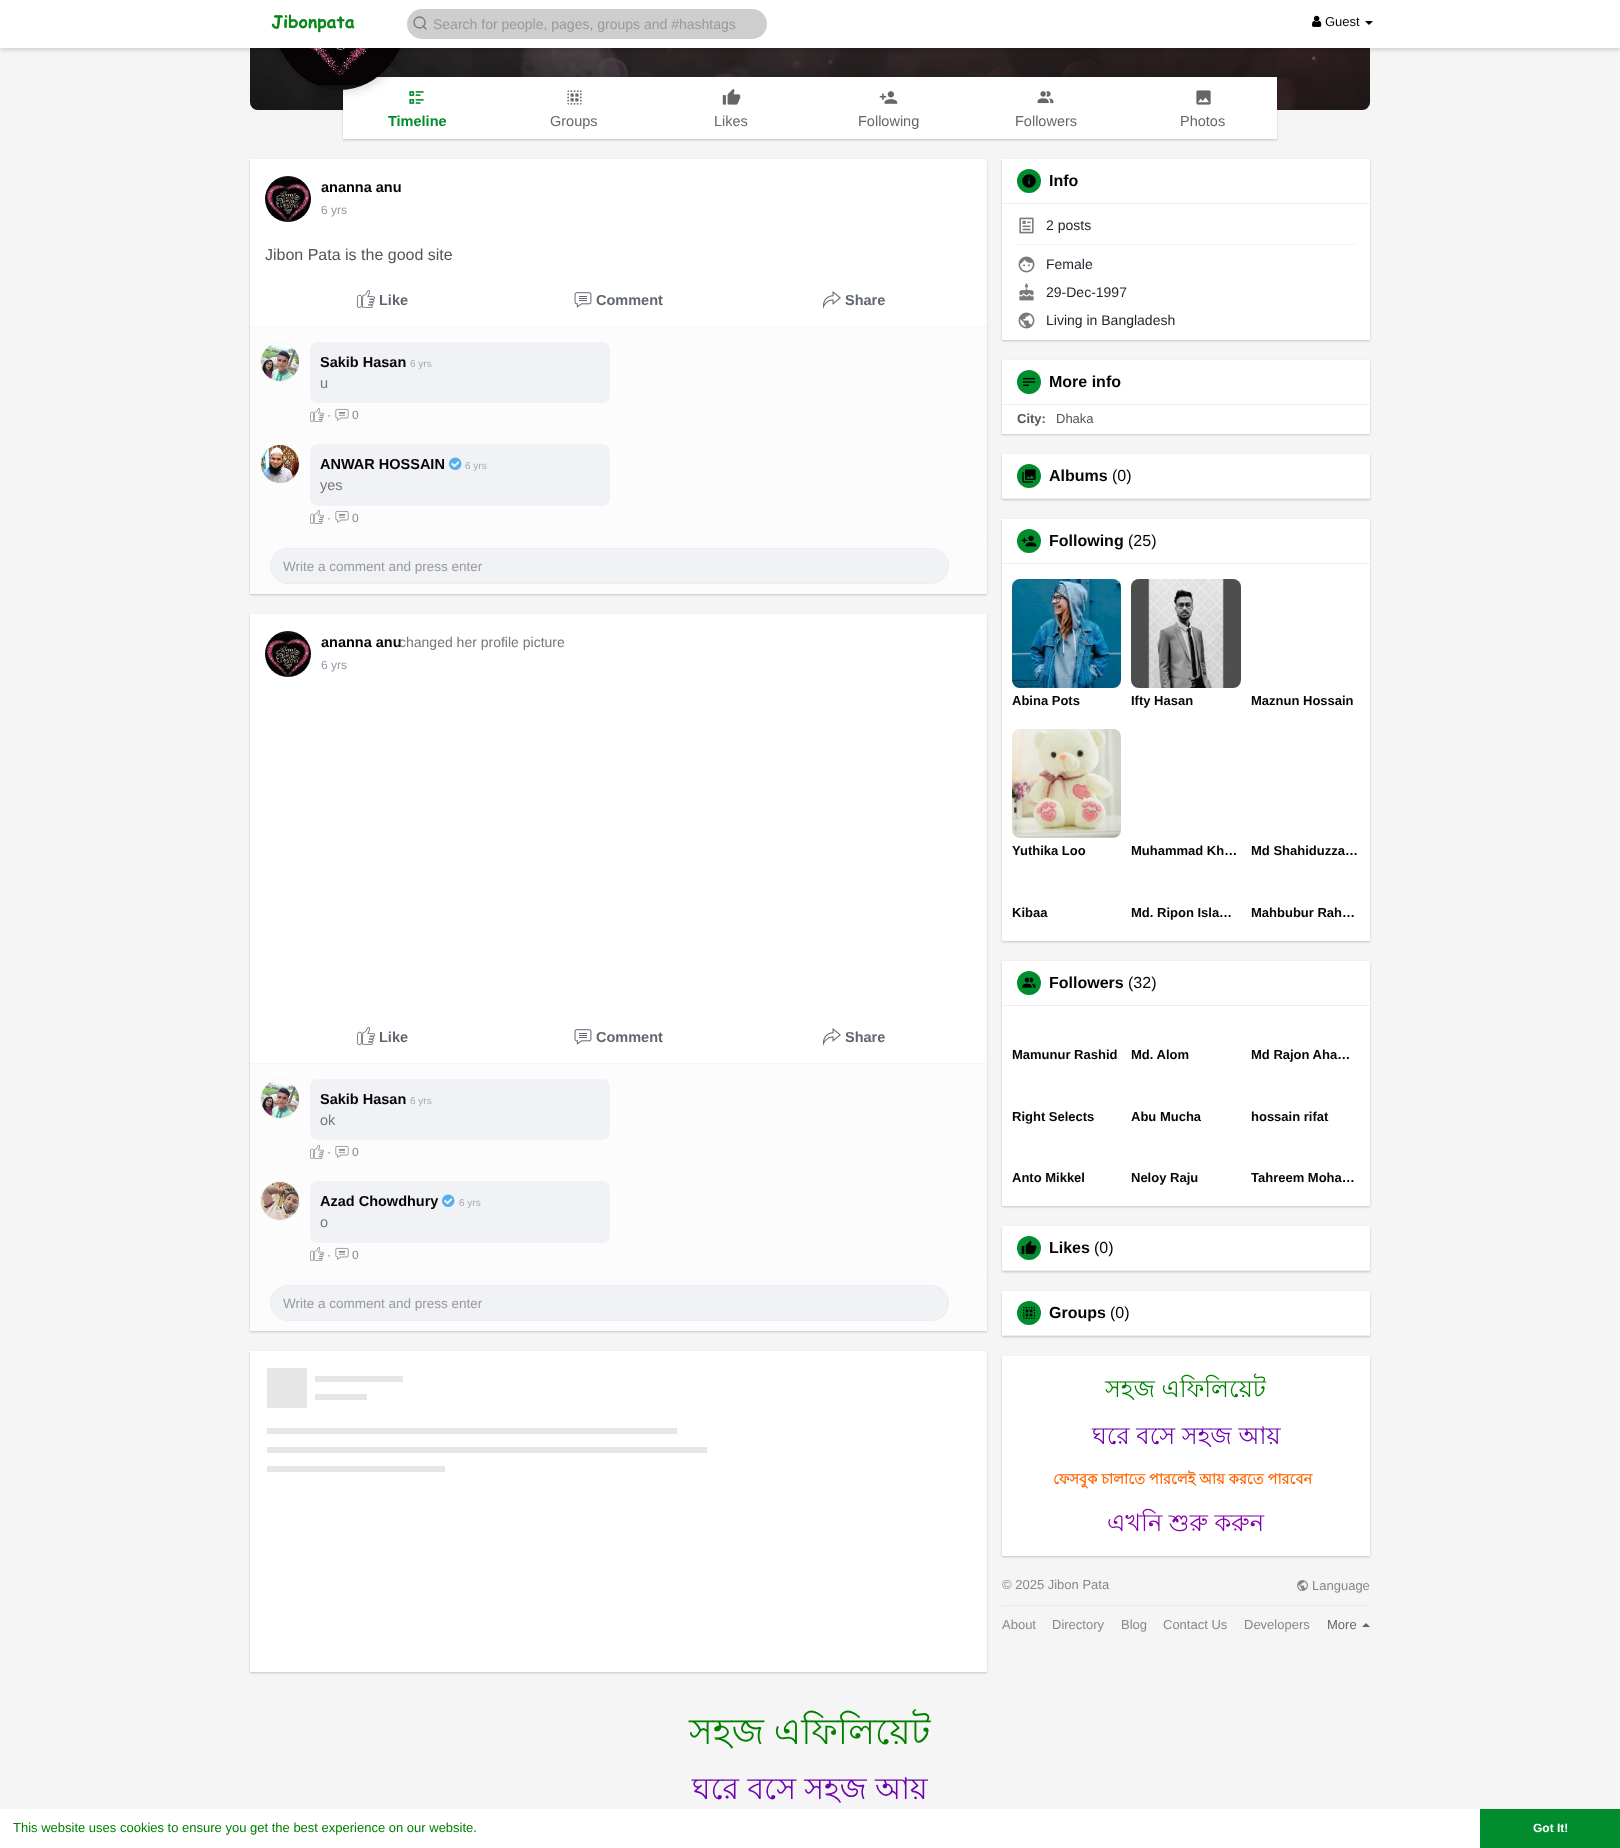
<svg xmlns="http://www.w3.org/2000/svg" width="1620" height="1848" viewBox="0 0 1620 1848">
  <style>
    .t1 { font: 14px Liberation Sans; fill: #999; }
    .t2 { font: 13px Liberation Sans; fill: #050505; }
    .t3 { font: bold 14.5px Liberation Sans; fill: #018c2d; }
    .t4 { font: 14.5px Liberation Sans; fill: #666; }
    .t5 { font: bold 14.5px Liberation Sans; fill: #050505; }
    .t6 { font: 12px Liberation Sans; fill: #9197a3; }
    .t7 { font: 16px Liberation Sans; fill: #555; }
    .t8 { font: bold 14.5px Liberation Sans; fill: #616770; }
    .t9 { font: 10px Liberation Sans; fill: #aaa; }
    .t10 { font: 14.5px Liberation Sans; fill: #777; }
    .t11 { font: 12px Liberation Sans; fill: #888; }
    .t12 { font: 13.5px Liberation Sans; fill: #999; }
    .t13 { font: 14px Liberation Sans; fill: #777; }
    .t14 { font: bold 16px Liberation Sans; fill: #050505; }
    .t15 { font: 14px Liberation Sans; fill: #1d2129; }
    .t16 { font: bold 13px Liberation Sans; fill: #555; }
    .t17 { font: 13px Liberation Sans; fill: #555; }
    .t18 { font: 16px Liberation Sans; fill: #050505; }
    .t19 { font: bold 13px Liberation Sans; fill: #050505; }
    .t20 { font: 24px Lohit Bengali; fill: #008000; }
    .t21 { font: 24px Lohit Bengali; fill: #6d02b0; }
    .t22 { font: bold 14.5px Lohit Bengali; fill: #f60; }
    .t23 { font: 24px Lohit Bengali; fill: #8602ab; }
    .t24 { font: 13px Liberation Sans; fill: #888; }
    .t25 { font: 13px Liberation Sans; fill: #666; }
    .t26 { font: 36px Lohit Bengali; fill: #008000; }
    .t27 { font: 30px Lohit Bengali; fill: #6d02b0; }
    .t28 { font: 13px Liberation Sans; fill: #008000; }
    .t29 { font: bold 12px Liberation Sans; fill: #fff; }
  </style>
  <defs>
    <linearGradient id="g1" gradientUnits="userSpaceOnUse" x1="810" y1="-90" x2="810" y2="110"><stop offset="0" stop-color="#000" stop-opacity="0"/><stop offset="1" stop-color="#000" stop-opacity="0.45"/></linearGradient>
  </defs>
  <rect width="100%" height="100%" fill="#f5f5f5"/>
  <path d="M250-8H1370V102C1370 106.5 1366.5 110 1362 110H258C253.5 110 250 106.5 250 102Z" fill="#fff"/>
  <image x="250" y="48" width="1120" height="62" href="images/3.png"/>
  <rect x="250" y="-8" width="1120" height="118" rx="8" fill="url(#g1)"/>
  <rect x="343" y="78" width="934" height="62" fill="#00000033" filter="blur(1px)"/>
  <rect x="343" y="77" width="934" height="62" fill="#fff"/>
  <image x="409" y="91" width="15" height="13" href="images/5.png"/>
  <rect x="270" y="-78" width="140" height="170" rx="70" fill="#00000026" filter="blur(5px)"/>
  <image x="279" y="48" width="122" height="42" href="images/4.png"/>
  <rect x="0" y="2" width="1620" height="48" fill="#00000026" filter="blur(2px)"/>
  <rect x="0" y="0" width="1620" height="48" fill="#fff"/>
  <image x="271" y="14" width="84" height="19" href="images/1.png"/>
  <rect x="407" y="9" width="360" height="30" rx="15" fill="#cecece"/>
  <circle cx="419.5" cy="22.5" r="5.5" fill="none" stroke="#787878" stroke-width="1.3"/>
  <path d="M426 29L423 26" fill="none" stroke="#787878" stroke-width="1.3" stroke-linecap="round" stroke-linejoin="round"/>
  <text x="433" y="29" class="t1">Search for people, pages, groups and #hashtags</text>
  <image x="1312" y="15" width="10" height="12" href="images/2.png"/>
  <text x="1325" y="26" class="t2">Guest</text>
  <path d="M1365 21H1373L1369 25Z" fill="#000"/>
  <text x="388" y="126" class="t3">Timeline</text>
  <image x="567" y="90" width="15" height="15" href="images/6.png"/>
  <text x="550" y="126" class="t4">Groups</text>
  <image x="722" y="88" width="19" height="17" href="images/7.png"/>
  <text x="714" y="126" class="t4">Likes</text>
  <image x="879" y="91" width="19" height="13" href="images/8.png"/>
  <text x="858" y="126" class="t4">Following</text>
  <image x="1037" y="91" width="17" height="13" href="images/9.png"/>
  <text x="1015" y="126" class="t4">Followers</text>
  <image x="1196" y="90" width="15" height="15" href="images/10.png"/>
  <text x="1180" y="126" class="t4">Photos</text>
  <rect x="250" y="160" width="737" height="435" fill="#00000033" filter="blur(1px)"/>
  <rect x="250" y="159" width="737" height="167" fill="#fff"/>
  <image x="265" y="176" width="46" height="46" href="images/11.png"/>
  <text x="321" y="192" class="t5">ananna anu</text>
  <text x="321" y="214" class="t6">6 yrs</text>
  <text x="265" y="260" class="t7">Jibon Pata is the good site</text>
  <image x="357" y="290" width="18" height="18" href="images/12.png"/>
  <text x="379" y="305" class="t8">Like</text>
  <image x="574" y="292" width="18" height="16" href="images/13.png"/>
  <text x="596" y="305" class="t8">Comment</text>
  <image x="823" y="291" width="18" height="18" href="images/14.png"/>
  <text x="845" y="305" class="t8">Share</text>
  <rect x="250" y="327" width="737" height="267" fill="#fcfcfc"/>
  <rect x="250" y="326" width="737" height="1" fill="#f6f6f6"/>
  <circle cx="280" cy="362" r="19.5" fill="none" stroke="#f4f4f4"/>
  <image x="261" y="343" width="38" height="38" href="images/15.png"/>
  <rect x="310" y="342" width="300" height="61" rx="8" fill="#f0f2f5"/>
  <text x="320" y="367" class="t5">Sakib Hasan</text>
  <text x="410" y="367" class="t9">6 yrs</text>
  <text x="320" y="388" class="t10">u</text>
  <image x="310" y="408" width="14" height="14" href="images/16.png"/>
  <text x="327" y="419" class="t11">·</text>
  <image x="335" y="408" width="14" height="13" href="images/17.png"/>
  <text x="352" y="419" class="t11">0</text>
  <circle cx="280" cy="464" r="19.5" fill="none" stroke="#f4f4f4"/>
  <image x="261" y="445" width="38" height="38" href="images/18.png"/>
  <rect x="310" y="444" width="300" height="62" rx="8" fill="#f0f2f5"/>
  <text x="320" y="469" class="t5">ANWAR HOSSAIN</text>
  <image x="449" y="457" width="13" height="13" href="images/19.png"/>
  <text x="465" y="469" class="t9">6 yrs</text>
  <text x="320" y="490" class="t10">yes</text>
  <image x="310" y="510" width="14" height="14" href="images/16.png"/>
  <text x="327" y="522" class="t11">·</text>
  <image x="335" y="510" width="14" height="13" href="images/17.png"/>
  <text x="352" y="522" class="t11">0</text>
  <rect x="250" y="537" width="737" height="1" fill="#f9f9f9"/>
  <rect x="270.5" y="548.5" width="678" height="35" rx="17.5" fill="#f0f2f5" stroke="#ededed"/>
  <text x="283" y="571" class="t12">Write a comment and press enter</text>
  <rect x="250" y="615" width="737" height="717" fill="#00000033" filter="blur(1px)"/>
  <rect x="250" y="614" width="737" height="449" fill="#fff"/>
  <image x="265" y="631" width="46" height="46" href="images/20.png"/>
  <text x="321" y="647" class="t5">ananna anu</text>
  <text x="399" y="647" class="t13">changed her profile picture</text>
  <text x="321" y="669" class="t6">6 yrs</text>
  <image x="357" y="1027" width="18" height="18" href="images/12.png"/>
  <text x="379" y="1042" class="t8">Like</text>
  <image x="574" y="1029" width="18" height="16" href="images/13.png"/>
  <text x="596" y="1042" class="t8">Comment</text>
  <image x="823" y="1028" width="18" height="18" href="images/14.png"/>
  <text x="845" y="1042" class="t8">Share</text>
  <rect x="250" y="1064" width="737" height="267" fill="#fcfcfc"/>
  <rect x="250" y="1063" width="737" height="1" fill="#f6f6f6"/>
  <circle cx="280" cy="1099" r="19.5" fill="none" stroke="#f4f4f4"/>
  <image x="261" y="1080" width="38" height="38" href="images/15.png"/>
  <rect x="310" y="1079" width="300" height="61" rx="8" fill="#f0f2f5"/>
  <text x="320" y="1104" class="t5">Sakib Hasan</text>
  <text x="410" y="1104" class="t9">6 yrs</text>
  <text x="320" y="1125" class="t10">ok</text>
  <image x="310" y="1145" width="14" height="14" href="images/16.png"/>
  <text x="327" y="1156" class="t11">·</text>
  <image x="335" y="1145" width="14" height="13" href="images/17.png"/>
  <text x="352" y="1156" class="t11">0</text>
  <circle cx="280" cy="1201" r="19.5" fill="none" stroke="#f4f4f4"/>
  <image x="261" y="1182" width="38" height="38" href="images/21.png"/>
  <rect x="310" y="1181" width="300" height="62" rx="8" fill="#f0f2f5"/>
  <text x="320" y="1206" class="t5">Azad Chowdhury</text>
  <image x="442" y="1194" width="13" height="13" href="images/19.png"/>
  <text x="459" y="1206" class="t9">6 yrs</text>
  <text x="320" y="1227" class="t10">o</text>
  <image x="310" y="1247" width="14" height="14" href="images/16.png"/>
  <text x="327" y="1259" class="t11">·</text>
  <image x="335" y="1247" width="14" height="13" href="images/17.png"/>
  <text x="352" y="1259" class="t11">0</text>
  <rect x="250" y="1274" width="737" height="1" fill="#f9f9f9"/>
  <rect x="270.5" y="1285.5" width="678" height="35" rx="17.5" fill="#f0f2f5" stroke="#ededed"/>
  <text x="283" y="1308" class="t12">Write a comment and press enter</text>
  <rect x="250" y="1352" width="737" height="321" fill="#00000033" filter="blur(1px)"/>
  <rect x="250" y="1351" width="737" height="321" fill="#fff"/>
  <rect x="267" y="1368" width="440" height="104" fill="#e6e6e6"/>
  <rect x="307" y="1368" width="8" height="40" fill="#fff"/>
  <rect x="315" y="1368" width="392" height="8" fill="#fff"/>
  <rect x="403" y="1376" width="304" height="6" fill="#fff"/>
  <rect x="315" y="1382" width="392" height="12" fill="#fff"/>
  <rect x="367" y="1394" width="340" height="6" fill="#fff"/>
  <rect x="315" y="1400" width="392" height="8" fill="#fff"/>
  <rect x="267" y="1408" width="440" height="20" fill="#fff"/>
  <rect x="677" y="1428" width="30" height="6" fill="#fff"/>
  <rect x="267" y="1434" width="440" height="13" fill="#fff"/>
  <rect x="267" y="1453" width="440" height="13" fill="#fff"/>
  <rect x="445" y="1466" width="262" height="6" fill="#fff"/>
  <rect x="1002" y="160" width="368" height="181" fill="#00000033" filter="blur(1px)"/>
  <rect x="1002" y="159" width="368" height="181" fill="#fff"/>
  <rect x="1002" y="203" width="368" height="1" fill="#eee"/>
  <circle cx="1029" cy="181" r="12" fill="#018c2d"/>
  <image x="1022" y="174" width="14" height="14" href="images/22.png"/>
  <text x="1049" y="186" class="t14">Info</text>
  <image x="1019" y="217" width="15" height="17" href="images/23.png"/>
  <text x="1046" y="230" class="t15">2 posts</text>
  <rect x="1015" y="244" width="342" height="1" fill="#f4f4f4"/>
  <image x="1018" y="256" width="17" height="17" href="images/24.png"/>
  <text x="1046" y="269" class="t15">Female</text>
  <image x="1019" y="283" width="15" height="18" href="images/25.png"/>
  <text x="1046" y="297" class="t15">29-Dec-1997</text>
  <image x="1018" y="312" width="17" height="17" href="images/26.png"/>
  <text x="1046" y="325" class="t15">Living in Bangladesh</text>
  <rect x="1002" y="361" width="368" height="74" fill="#00000033" filter="blur(1px)"/>
  <rect x="1002" y="360" width="368" height="74" fill="#fff"/>
  <rect x="1002" y="404" width="368" height="1" fill="#eee"/>
  <circle cx="1029" cy="382" r="12" fill="#018c2d"/>
  <image x="1023" y="378" width="12" height="8" href="images/27.png"/>
  <text x="1049" y="387" class="t14">More info</text>
  <text x="1017" y="423" class="t16">City:</text>
  <text x="1056" y="423" class="t17">Dhaka</text>
  <rect x="1002" y="455" width="368" height="45" fill="#00000033" filter="blur(1px)"/>
  <rect x="1002" y="454" width="368" height="44" fill="#fff"/>
  <rect x="1002" y="498" width="368" height="1" fill="#eee"/>
  <circle cx="1029" cy="476" r="12" fill="#018c2d"/>
  <image x="1022" y="469" width="14" height="14" href="images/28.png"/>
  <text x="1049" y="481" class="t14">Albums</text>
  <text x="1112" y="481" class="t18">(0)</text>
  <rect x="1002" y="520" width="368" height="422" fill="#00000033" filter="blur(1px)"/>
  <rect x="1002" y="519" width="368" height="422" fill="#fff"/>
  <rect x="1002" y="563" width="368" height="1" fill="#eee"/>
  <circle cx="1029" cy="541" r="12" fill="#018c2d"/>
  <image x="1021" y="535" width="16" height="12" href="images/29.png"/>
  <text x="1049" y="546" class="t14">Following</text>
  <text x="1128" y="546" class="t18">(25)</text>
  <image x="1012" y="579" width="109" height="109" href="images/30.png"/>
  <text x="1012" y="705" class="t19">Abina Pots</text>
  <image x="1131" y="579" width="110" height="109" href="images/31.png"/>
  <text x="1131" y="705" class="t19">Ifty Hasan</text>
  <text x="1251" y="705" class="t19">Maznun Hossain</text>
  <image x="1012" y="729" width="109" height="109" href="images/32.png"/>
  <text x="1012" y="855" class="t19">Yuthika Loo</text>
  <text x="1131" y="855" class="t19">Muhammad Kh…</text>
  <text x="1251" y="855" class="t19">Md Shahiduzza…</text>
  <text x="1012" y="917" class="t19">Kibaa</text>
  <text x="1131" y="917" class="t19">Md. Ripon Isla…</text>
  <text x="1251" y="917" class="t19">Mahbubur Rah…</text>
  <rect x="1002" y="962" width="368" height="245" fill="#00000033" filter="blur(1px)"/>
  <rect x="1002" y="961" width="368" height="245" fill="#fff"/>
  <rect x="1002" y="1005" width="368" height="1" fill="#eee"/>
  <circle cx="1029" cy="983" r="12" fill="#018c2d"/>
  <image x="1022" y="977" width="14" height="11" href="images/33.png"/>
  <text x="1049" y="988" class="t14">Followers</text>
  <text x="1128" y="988" class="t18">(32)</text>
  <text x="1012" y="1059" class="t19">Mamunur Rashid</text>
  <text x="1131" y="1059" class="t19">Md. Alom</text>
  <text x="1251" y="1059" class="t19">Md Rajon Aha…</text>
  <text x="1012" y="1121" class="t19">Right Selects</text>
  <text x="1131" y="1121" class="t19">Abu Mucha</text>
  <text x="1251" y="1121" class="t19">hossain rifat</text>
  <text x="1012" y="1182" class="t19">Anto Mikkel</text>
  <text x="1131" y="1182" class="t19">Neloy Raju</text>
  <text x="1251" y="1182" class="t19">Tahreem Moha…</text>
  <rect x="1002" y="1227" width="368" height="45" fill="#00000033" filter="blur(1px)"/>
  <rect x="1002" y="1226" width="368" height="44" fill="#fff"/>
  <rect x="1002" y="1270" width="368" height="1" fill="#eee"/>
  <circle cx="1029" cy="1248" r="12" fill="#018c2d"/>
  <image x="1021" y="1240" width="16" height="14" href="images/34.png"/>
  <text x="1049" y="1253" class="t14">Likes</text>
  <text x="1094" y="1253" class="t18">(0)</text>
  <rect x="1002" y="1292" width="368" height="45" fill="#00000033" filter="blur(1px)"/>
  <rect x="1002" y="1291" width="368" height="44" fill="#fff"/>
  <rect x="1002" y="1335" width="368" height="1" fill="#eee"/>
  <circle cx="1029" cy="1313" r="12" fill="#018c2d"/>
  <image x="1023" y="1307" width="12" height="12" href="images/35.png"/>
  <text x="1049" y="1318" class="t14">Groups</text>
  <text x="1110" y="1318" class="t18">(0)</text>
  <rect x="1002" y="1357" width="368" height="200" fill="#00000033" filter="blur(1px)"/>
  <rect x="1002" y="1356" width="368" height="200" fill="#fff"/>
  <text x="1105" y="1397" class="t20">সহজ এফিলিয়েট</text>
  <text x="1092" y="1444" class="t21">ঘরে বসে সহজ আয়</text>
  <text x="1053" y="1484" class="t22">ফেসবুক চালাতে পারলেই আয় করতে পারবেন</text>
  <text x="1107" y="1531" class="t23">এখনি শুরু করুন</text>
  <text x="1002" y="1589" class="t24">© 2025 Jibon Pata</text>
  <image x="1297" y="1580" width="11" height="11" href="images/36.png"/>
  <text x="1312" y="1590" class="t24">Language</text>
  <rect x="1002" y="1605" width="368" height="1" fill="#e9e9e9"/>
  <text x="1002" y="1629" class="t24">About</text>
  <text x="1052" y="1629" class="t24">Directory</text>
  <text x="1121" y="1629" class="t24">Blog</text>
  <text x="1163" y="1629" class="t24">Contact Us</text>
  <text x="1244" y="1629" class="t24">Developers</text>
  <text x="1327" y="1629" class="t25">More</text>
  <path d="M1370 1627H1362L1366 1623Z" fill="#666"/>
  <text x="689" y="1744" class="t26">সহজ এফিলিয়েট</text>
  <text x="692" y="1799" class="t27">ঘরে বসে সহজ আয়</text>
  <rect x="0" y="1809" width="1480" height="39" fill="#fff"/>
  <text x="13" y="1832" class="t28">This website uses cookies to ensure you get the best experience on our website.</text>
  <rect x="1480" y="1809" width="140" height="39" fill="#018c2d"/>
  <text x="1533" y="1832" class="t29">Got It!</text>
</svg>
